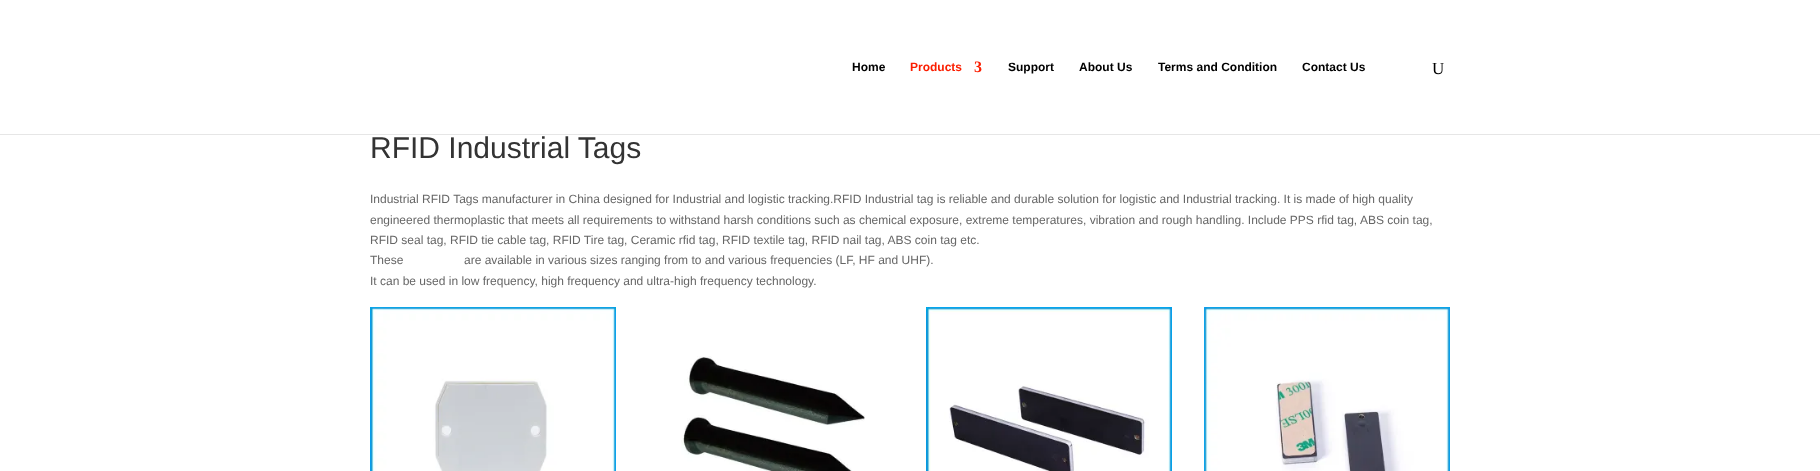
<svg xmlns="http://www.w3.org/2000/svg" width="1820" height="471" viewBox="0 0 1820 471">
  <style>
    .t1 { font: bold 12px Liberation Sans; fill: #000; }
    .t2 { font: bold 12px Liberation Sans; fill: #fb1e01; }
    .t3 { font: bold 16px Liberation Serif; fill: #fb1e01; }
    .t4 { font: 17px Liberation Serif; fill: #000; }
    .t5 { font: 30px Liberation Sans; fill: #333; }
    .t6 { font: 12px Liberation Sans; fill: #666; }
  </style>
  <rect width="100%" height="100%" fill="#fff"/>
  <rect x="0" y="134" width="1820" height="1" fill="#e6e6e6"/>
  <text x="852" y="71" class="t1">Home</text>
  <text x="910" y="71" class="t2">Products</text>
  <text x="974" y="72" class="t3">3</text>
  <text x="1008" y="71" class="t1">Support</text>
  <text x="1079" y="71" class="t1">About Us</text>
  <text x="1158" y="71" class="t1">Terms and Condition</text>
  <text x="1302" y="71" class="t1">Contact Us</text>
  <text x="1432" y="74" class="t4">U</text>
  <text x="370" y="158" class="t5">RFID Industrial Tags</text>
  <text x="370" y="203" class="t6">Industrial RFID Tags manufacturer in China designed for Industrial and logistic tracking.RFID Industrial tag is reliable and durable solution for logistic and Industrial tracking. It is made of high quality</text>
  <text x="370" y="224" class="t6">engineered thermoplastic that meets all requirements to withstand harsh conditions such as chemical exposure, extreme temperatures, vibration and rough handling. Include PPS rfid tag, ABS coin tag,</text>
  <text x="370" y="244" class="t6">RFID seal tag, RFID tie cable tag, RFID Tire tag, Ceramic rfid tag, RFID textile tag, RFID nail tag, ABS coin tag etc.</text>
  <text x="370" y="264" class="t6">These</text>
  <text x="464" y="264" class="t6">are available in various sizes ranging from to and various frequencies (LF, HF and UHF).</text>
  <text x="370" y="285" class="t6">It can be used in low frequency, high frequency and ultra-high frequency technology.</text>
  <image x="370" y="307" width="246" height="164" href="images/1.png"/>
  <image x="681" y="356" width="184" height="115" href="images/2.png"/>
  <image x="926" y="307" width="246" height="164" href="images/3.png"/>
  <image x="1204" y="307" width="246" height="164" href="images/4.png"/>
</svg>
